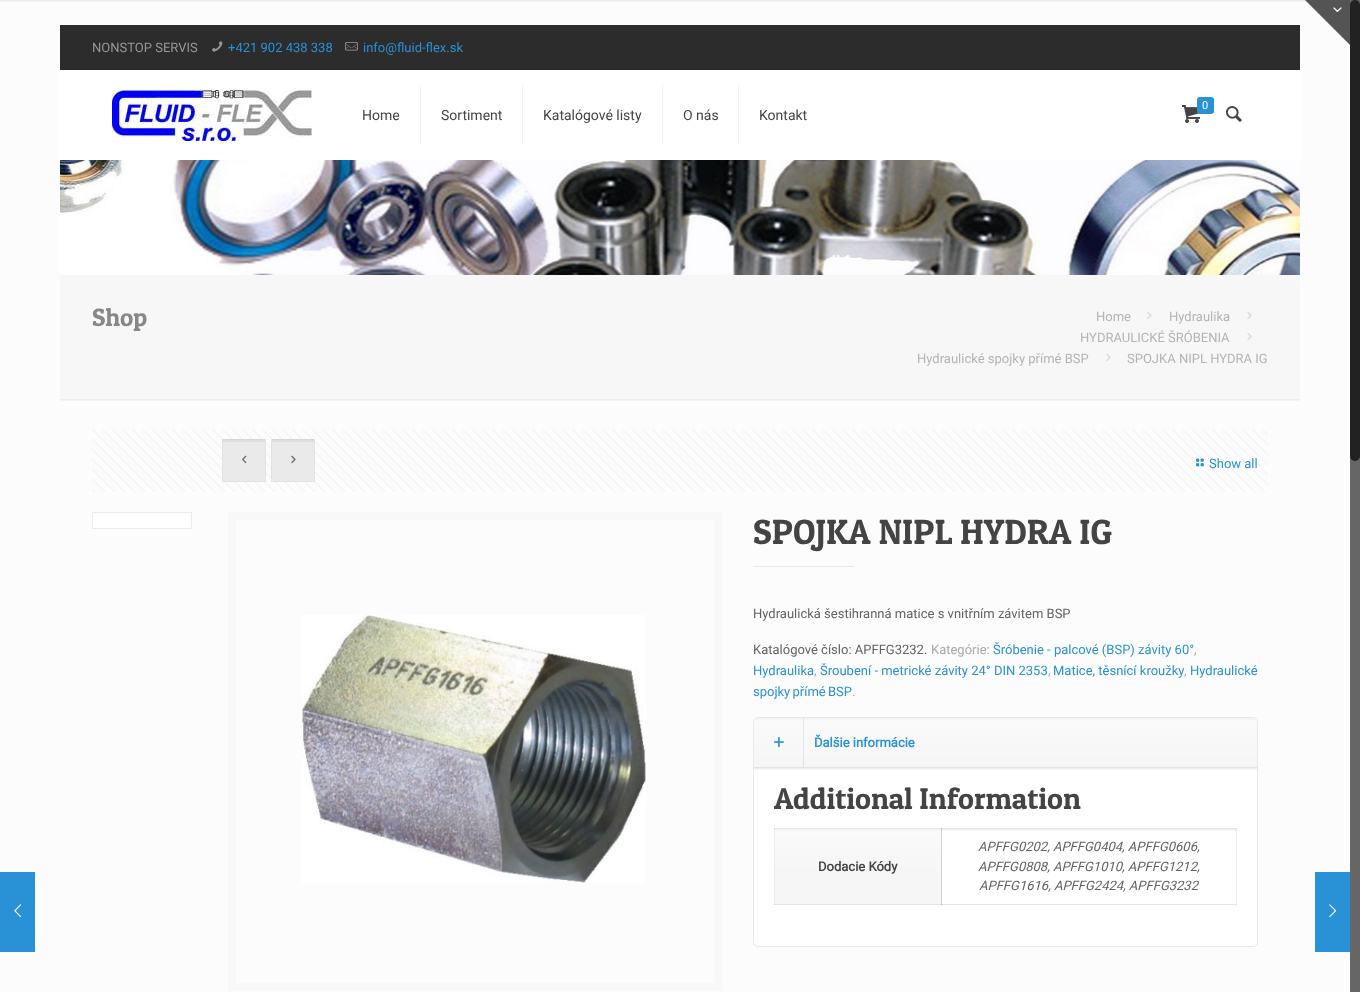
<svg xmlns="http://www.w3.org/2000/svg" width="1360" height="992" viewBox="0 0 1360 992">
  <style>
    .t1 { font: 13px Roboto; fill: #969696; }
    .t2 { font: 13px Roboto; fill: #2991d6; }
    .t3 { font: 11px Roboto; fill: #fff; }
    .t4 { font: 14px Roboto; fill: #444; }
    .t5 { font: 25px Patua One; fill: #888; }
    .t6 { font: 13px Roboto; fill: #b4b4b4; }
    .t7 { font: 35px Patua One; fill: #444; }
    .t8 { font: 13px Roboto; fill: #626262; }
    .t9 { font: 13px Roboto; fill: #a8a8a8; }
    .t10 { font: bold 13px Roboto; fill: #2991d6; }
    .t11 { font: 30px Patua One; fill: #444; }
    .t12 { font: bold 13px Roboto; fill: #444; }
    .t13 { font: italic 13px Roboto; fill: #626262; }
  </style>
  <rect width="100%" height="100%" fill="#fcfcfc"/>
  <image x="0" y="0" width="1307" height="2" href="images/1.png"/>
  <path d="M1350 0V45L1305 0Z" fill="#545454"/>
  <image x="1333" y="7" width="9" height="5" href="images/2.png"/>
  <rect x="1350" y="0" width="10" height="992" fill="#666"/>
  <rect x="1350" y="0" width="10" height="461" rx="5" fill="#222"/>
  <image x="60" y="160" width="1240" height="115" href="images/3.png"/>
  <rect x="60" y="25" width="1240" height="45" fill="#2c2c2c"/>
  <text x="92" y="52" class="t1">NONSTOP SERVIS</text>
  <image x="212" y="41" width="11" height="11" href="images/4.png"/>
  <text x="228" y="52" class="t2">+421 902 438 338</text>
  <image x="345" y="42" width="13" height="9" href="images/5.png"/>
  <text x="363" y="52" class="t2">info@fluid-flex.sk</text>
  <rect x="60" y="70" width="1240" height="90" fill="#fff"/>
  <image x="1182" y="105" width="18" height="18" href="images/6.png"/>
  <rect x="1197" y="97" width="17" height="17" rx="3" fill="#2991d6"/>
  <text x="1202" y="109" class="t3">0</text>
  <image x="1226" y="106" width="16" height="16" href="images/7.png"/>
  <image x="112" y="90" width="200" height="51" href="images/8.png"/>
  <rect x="420" y="85" width="1" height="60" fill="#f2f2f2"/>
  <text x="362" y="120" class="t4">Home</text>
  <rect x="522" y="85" width="1" height="60" fill="#f2f2f2"/>
  <text x="441" y="120" class="t4">Sortiment</text>
  <rect x="662" y="85" width="1" height="60" fill="#f2f2f2"/>
  <text x="543" y="120" class="t4">Katalógové listy</text>
  <rect x="738" y="85" width="1" height="60" fill="#f2f2f2"/>
  <text x="683" y="120" class="t4">O nás</text>
  <text x="759" y="120" class="t4">Kontakt</text>
  <rect x="60" y="275" width="1240" height="124" fill="#f7f7f7"/>
  <text x="92" y="326" class="t5">Shop</text>
  <text x="1096" y="321" class="t6">Home</text>
  <image x="1147" y="312" width="5" height="7" href="images/9.png"/>
  <text x="1169" y="321" class="t6">Hydraulika</text>
  <image x="1247" y="312" width="5" height="7" href="images/9.png"/>
  <text x="1080" y="342" class="t6">HYDRAULICKÉ ŠRÓBENIA</text>
  <image x="1247" y="333" width="5" height="7" href="images/9.png"/>
  <text x="917" y="363" class="t6">Hydraulické spojky přímé BSP</text>
  <image x="1106" y="354" width="5" height="7" href="images/9.png"/>
  <text x="1127" y="363" class="t6">SPOJKA NIPL HYDRA IG</text>
  <image x="60" y="399" width="1240" height="2" href="images/10.png"/>
  <image x="92" y="429" width="1176" height="63" href="images/11.png"/>
  <rect x="222" y="439" width="44" height="43" rx="5" fill="#f7f7f7"/>
  <rect x="223" y="439" width="42" height="3" fill="#0000000d"/>
  <rect x="222.5" y="439.5" width="43" height="42" fill="none" stroke="#00000008"/>
  <rect x="222" y="439" width="44" height="43" fill="#0000000d"/>
  <image x="242" y="455" width="5" height="9" href="images/12.png"/>
  <rect x="271" y="439" width="44" height="43" rx="5" fill="#f7f7f7"/>
  <rect x="272" y="439" width="42" height="3" fill="#0000000d"/>
  <rect x="271.5" y="439.5" width="43" height="42" fill="none" stroke="#00000008"/>
  <rect x="271" y="439" width="44" height="43" fill="#0000000d"/>
  <image x="291" y="455" width="5" height="9" href="images/13.png"/>
  <image x="1196" y="458" width="8" height="9" href="images/14.png"/>
  <text x="1209" y="468" class="t2">Show all</text>
  <rect x="92.5" y="512.5" width="99" height="16" fill="#fff" stroke="#ebebeb"/>
  <rect x="232" y="516" width="486" height="471" fill="none" stroke="#f8f8f8" stroke-width="8"/>
  <image x="302" y="615" width="344" height="268" href="images/15.png"/>
  <text x="753" y="544" class="t7">SPOJKA NIPL HYDRA IG</text>
  <rect x="753" y="566" width="101" height="1" fill="#e8e8e8"/>
  <text x="753" y="618" class="t8">Hydraulická šestihranná matice s vnitřním závitem BSP</text>
  <text x="753" y="654" class="t8">Katalógové číslo: APFFG3232.</text>
  <text x="931" y="654" class="t9">Kategórie:</text>
  <text x="993" y="654" class="t2">Šróbenie - palcové (BSP) závity 60°</text>
  <text x="1194" y="654" class="t9">,</text>
  <text x="753" y="675" class="t2">Hydraulika</text>
  <text x="814" y="675" class="t9">,</text>
  <text x="820" y="675" class="t2">Šroubení - metrické závity 24° DIN 2353</text>
  <text x="1048" y="675" class="t9">,</text>
  <text x="1053" y="675" class="t2">Matice, těsnící kroužky</text>
  <text x="1184" y="675" class="t9">,</text>
  <text x="1190" y="675" class="t2">Hydraulické</text>
  <text x="753" y="696" word-spacing="-1" class="t2">spojky přímé BSP</text>
  <text x="852" y="696" class="t9">.</text>
  <rect x="753.5" y="717.5" width="504" height="229" rx="4.5" fill="none" stroke="#e8e8e8"/>
  <image x="754" y="718" width="503" height="49" href="images/16.png"/>
  <rect x="754" y="767" width="503" height="1" fill="#e2e2e2"/>
  <image x="774" y="737" width="10" height="10" href="images/17.png"/>
  <rect x="803" y="718" width="1" height="49" fill="#00000014"/>
  <text x="814" y="747" class="t10">Ďalšie informácie</text>
  <path d="M754 768H1257V942C1257 944 1255 946 1253 946H758C756 946 754 944 754 942Z" fill="#fff"/>
  <rect x="941" y="904" width="296" height="1" fill="#e6e6e6"/>
  <rect x="1236" y="828" width="1" height="77" fill="#ebebeb"/>
  <rect x="1236" y="904" width="1" height="1" fill="#d4d4d4"/>
  <image x="754" y="768" width="503" height="2" href="images/18.png"/>
  <text x="774" y="809" class="t11">Additional Information</text>
  <rect x="774" y="828" width="463" height="1" fill="#e6e6e6"/>
  <rect x="1236" y="828" width="1" height="1" fill="#d4d4d4"/>
  <image x="775" y="829" width="167" height="75" href="images/19.png"/>
  <rect x="941" y="828" width="1" height="77" fill="#00000014"/>
  <rect x="941" y="828" width="1" height="77" fill="#00000014"/>
  <rect x="774" y="904" width="168" height="1" fill="#0000001a"/>
  <rect x="774" y="828" width="1" height="77" fill="#00000014"/>
  <text x="818" y="871" class="t12">Dodacie Kódy</text>
  <image x="942" y="829" width="294" height="2" href="images/20.png"/>
  <text x="978" y="851" class="t13">APFFG0202, APFFG0404, APFFG0606,</text>
  <text x="978" y="871" class="t13">APFFG0808, APFFG1010, APFFG1212,</text>
  <text x="979" y="890" class="t13">APFFG1616, APFFG2424, APFFG3232</text>
  <rect x="0" y="872" width="35" height="80" fill="#2991d6"/>
  <image x="14" y="904" width="8" height="14" href="images/21.png"/>
  <rect x="1315" y="872" width="35" height="80" fill="#2991d6"/>
  <image x="1329" y="904" width="8" height="14" href="images/22.png"/>
</svg>
